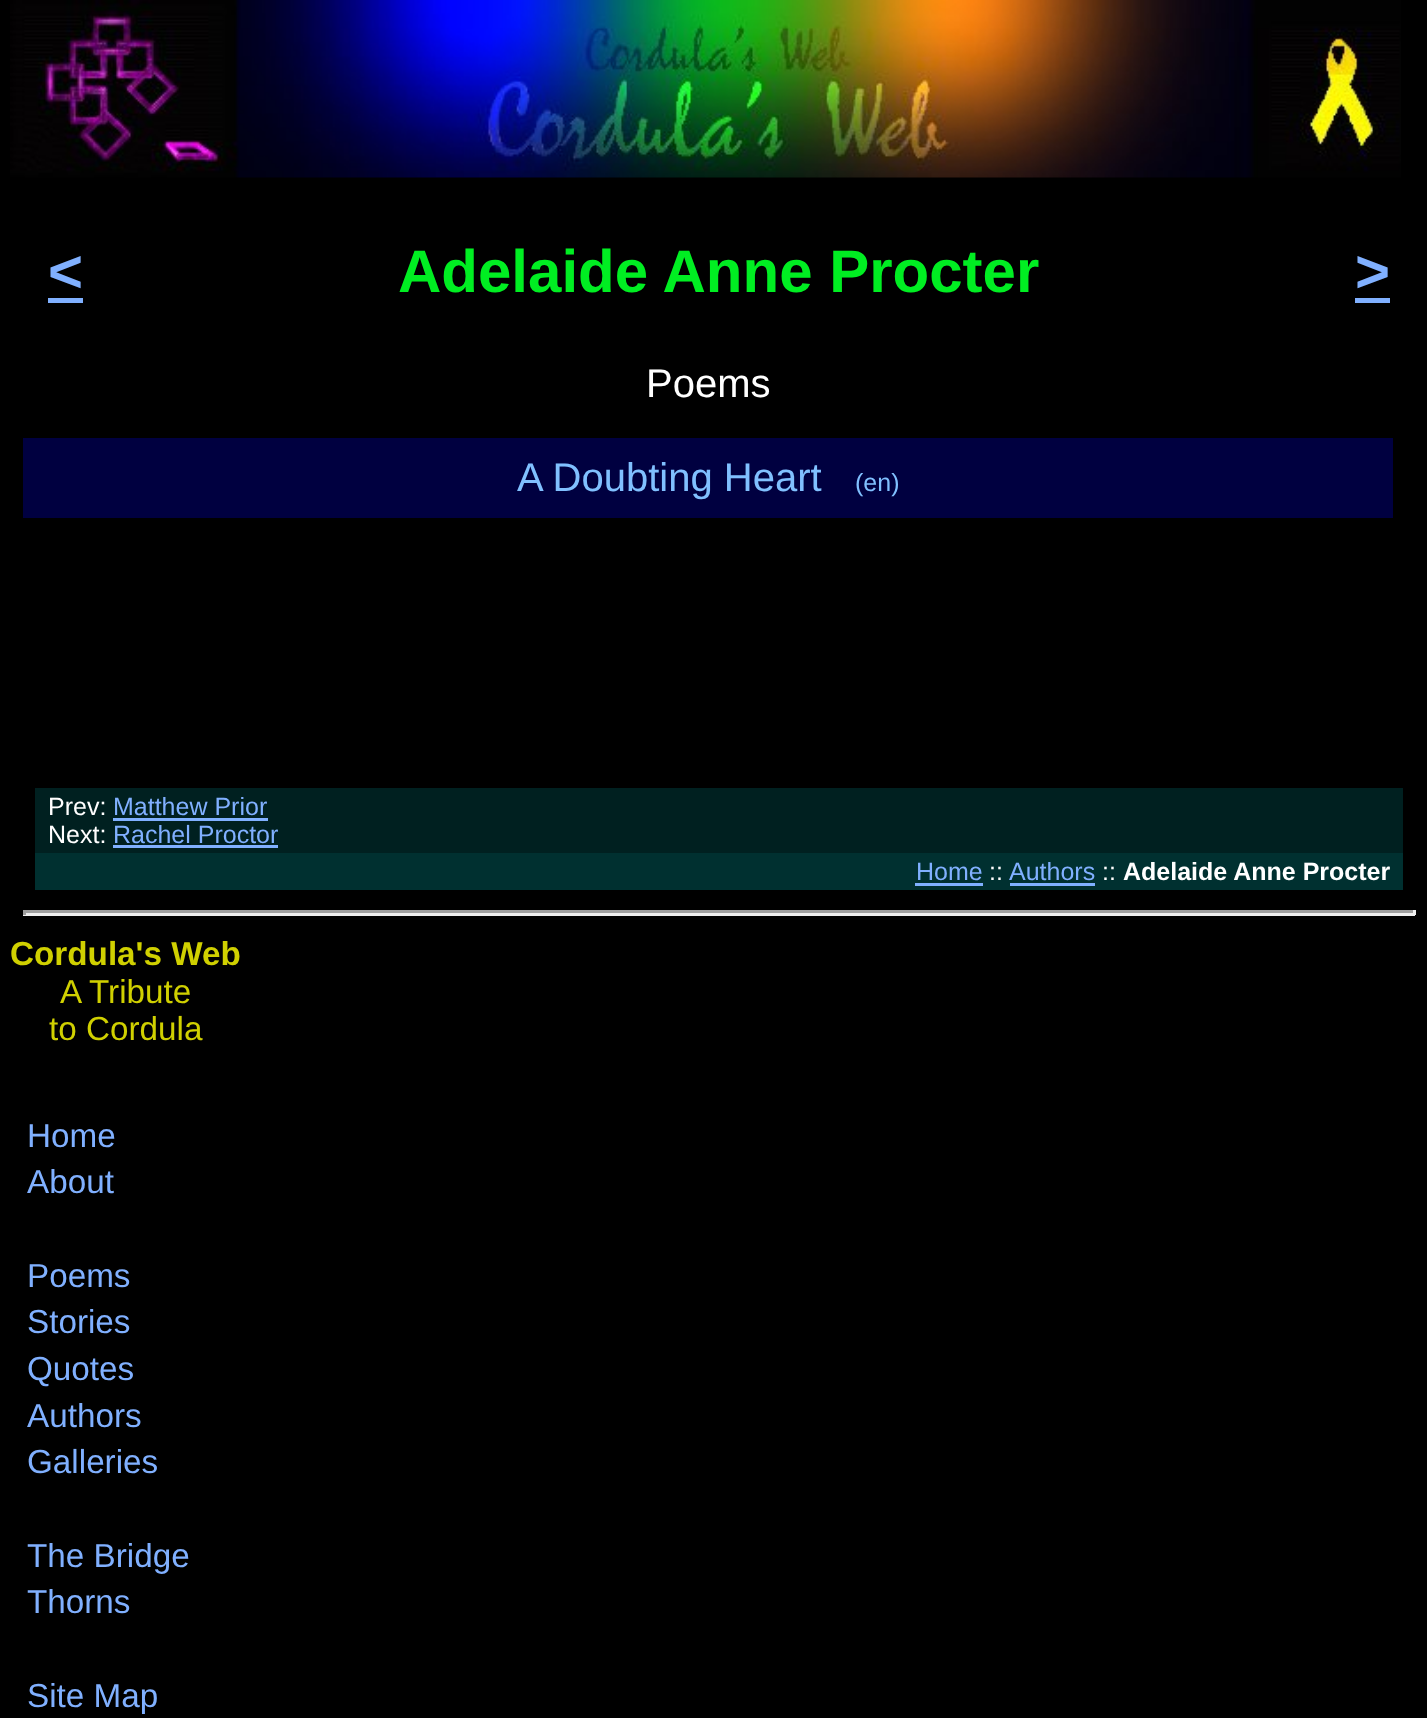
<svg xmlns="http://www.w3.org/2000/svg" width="1427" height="1718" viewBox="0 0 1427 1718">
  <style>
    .t1 { font: bold 60px Liberation Sans; fill: #80b0ff; }
    .t2 { font: bold 60px Liberation Sans; fill: #0e2; }
    .t3 { font: 40px Liberation Sans; fill: #fff; }
    .t4 { font: 40px Liberation Sans; fill: #80c0ff; }
    .t5 { font: 25px Liberation Sans; fill: #80c0ff; }
    .t6 { font: 25px Liberation Sans; fill: #fff; }
    .t7 { font: 25px Liberation Sans; fill: #80b0ff; }
    .t8 { font: bold 25px Liberation Sans; fill: #fff; }
    .t9 { font: bold 33.25px Liberation Sans; fill: #d0d000; }
    .t10 { font: 33.25px Liberation Sans; fill: #d0d000; }
    .t11 { font: 33.25px Liberation Sans; fill: #80b0ff; }
  </style>
  <rect width="100%" height="100%" fill="#000"/>
  <image x="10" y="0" width="1391" height="178" href="images/1.png"/>
  <text x="48" y="292" class="t1">&lt;</text>
  <rect x="48" y="298" width="35" height="5" fill="#80b0ff"/>
  <text x="398" y="292" class="t2">Adelaide Anne Procter</text>
  <text x="1355" y="292" class="t1">&gt;</text>
  <rect x="1355" y="298" width="35" height="5" fill="#80b0ff"/>
  <text x="646" y="397" class="t3">Poems</text>
  <rect x="23" y="438" width="1370" height="80" fill="#000040"/>
  <text x="517" y="491" class="t4">A Doubting Heart</text>
  <text x="855" y="491" class="t5">(en)</text>
  <rect x="35" y="788" width="1368" height="65" fill="#002020"/>
  <text x="48" y="815" class="t6">Prev:</text>
  <text x="113" y="815" class="t7">Matthew Prior</text>
  <rect x="113" y="818" width="155" height="3" fill="#80b0ff"/>
  <text x="48" y="843" class="t6">Next:</text>
  <text x="113" y="843" class="t7">Rachel Proctor</text>
  <rect x="113" y="845" width="165" height="3" fill="#80b0ff"/>
  <rect x="35" y="853" width="1368" height="37" fill="#003030"/>
  <text x="916" y="880" class="t7">Home</text>
  <rect x="915" y="883" width="68" height="3" fill="#80b0ff"/>
  <text x="989" y="880" class="t6">::</text>
  <text x="1009" y="880" class="t7">Authors</text>
  <rect x="1010" y="883" width="85" height="3" fill="#80b0ff"/>
  <text x="1102" y="880" class="t6">::</text>
  <text x="1123" y="880" class="t8">Adelaide Anne Procter</text>
  <rect x="23" y="910" width="1392" height="3" fill="#9f9f9f"/>
  <rect x="1413" y="910" width="3" height="5" fill="#eee"/>
  <rect x="23" y="913" width="1392" height="3" fill="#eee"/>
  <rect x="23" y="910" width="3" height="5" fill="#9f9f9f"/>
  <text x="10" y="965" class="t9">Cordula's Web</text>
  <text x="60" y="1003" class="t10">A Tribute</text>
  <text x="49" y="1040" class="t10">to Cordula</text>
  <text x="27" y="1147" class="t11">Home</text>
  <text x="27" y="1193" class="t11">About</text>
  <text x="27" y="1287" class="t11">Poems</text>
  <text x="27" y="1333" class="t11">Stories</text>
  <text x="27" y="1380" class="t11">Quotes</text>
  <text x="27" y="1427" class="t11">Authors</text>
  <text x="27" y="1473" class="t11">Galleries</text>
  <text x="27" y="1567" class="t11">The Bridge</text>
  <text x="27" y="1613" class="t11">Thorns</text>
  <text x="27" y="1707" class="t11">Site Map</text>
</svg>
